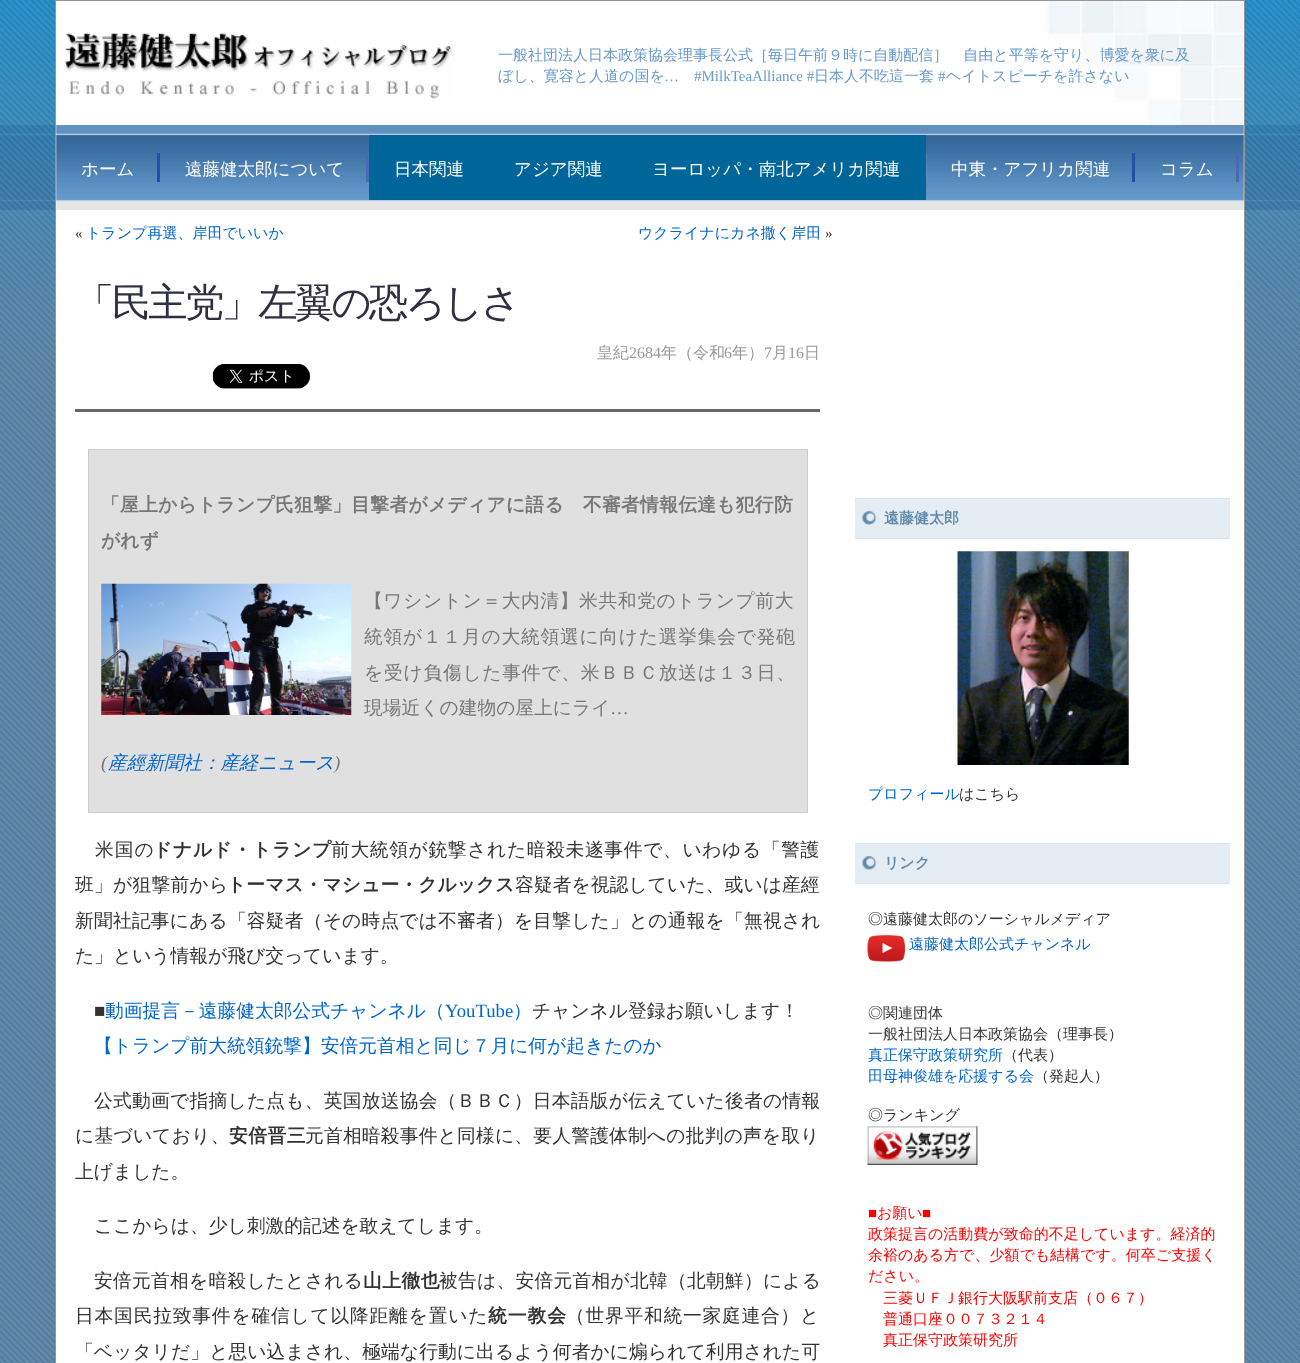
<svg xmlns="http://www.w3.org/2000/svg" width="1300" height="1363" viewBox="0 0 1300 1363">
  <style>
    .t1 { font: 500 15px WenQuanYi Zen Hei; fill: #69c; }
    .t2 { font: 15px Liberation Serif; fill: #69c; }
    .t3 { font: 500 17.5px WenQuanYi Zen Hei; fill: #fff; }
    .t4 { font: 15px Liberation Serif; fill: #333; }
    .t5 { font: 500 15px WenQuanYi Zen Hei; fill: #06c; }
    .t6 { font: 500 39.4px WenQuanYi Zen Hei; letter-spacing: -2.75px; fill: #2f2f40; }
    .t7 { font: 500 16px WenQuanYi Zen Hei; fill: #999; }
    .t8 { font: 16px Liberation Serif; fill: #999; }
    .t9 { font: bold 18.75px WenQuanYi Zen Hei; letter-spacing: 0.3px; fill: #777; }
    .t10 { font: bold 18.75px WenQuanYi Zen Hei; fill: #777; }
    .t11 { font: 500 18.75px WenQuanYi Zen Hei; letter-spacing: 0.6px; fill: #777; }
    .t12 { font: 500 18.75px WenQuanYi Zen Hei; letter-spacing: 0.75px; fill: #777; }
    .t13 { font: 500 18.75px WenQuanYi Zen Hei; fill: #777; }
    .t14 { font: 18.75px Liberation Serif; fill: #777; }
    .t15 { font: italic 18.75px Liberation Serif; fill: #777; }
    .t16 { font: italic 500 18.75px WenQuanYi Zen Hei; fill: #06c; }
    .t17 { font: 500 18.75px WenQuanYi Zen Hei; letter-spacing: 1px; fill: #333; }
    .t18 { font: bold 18.75px WenQuanYi Zen Hei; letter-spacing: 0.75px; fill: #333; }
    .t19 { font: 500 18.75px WenQuanYi Zen Hei; letter-spacing: 0.65px; fill: #333; }
    .t20 { font: 500 18.75px WenQuanYi Zen Hei; letter-spacing: 0.25px; fill: #333; }
    .t21 { font: bold 18.75px WenQuanYi Zen Hei; letter-spacing: 0.1px; fill: #333; }
    .t22 { font: 500 18.75px WenQuanYi Zen Hei; letter-spacing: 0.1px; fill: #333; }
    .t23 { font: 500 18.75px WenQuanYi Zen Hei; letter-spacing: 0.2px; fill: #333; }
    .t24 { font: 500 18.75px WenQuanYi Zen Hei; fill: #333; }
    .t25 { font: 18.75px Liberation Serif; fill: #333; }
    .t26 { font: 500 18.75px WenQuanYi Zen Hei; fill: #06c; }
    .t27 { font: 18.75px Liberation Serif; fill: #06c; }
    .t28 { font: bold 18.75px WenQuanYi Zen Hei; letter-spacing: 0.5px; fill: #333; }
    .t29 { font: 500 18.75px WenQuanYi Zen Hei; letter-spacing: 0.8px; fill: #333; }
    .t30 { font: bold 18.75px WenQuanYi Zen Hei; letter-spacing: 1px; fill: #333; }
    .t31 { font: 500 18.75px WenQuanYi Zen Hei; letter-spacing: 0.75px; fill: #333; }
    .t32 { font: bold 15px WenQuanYi Zen Hei; fill: #608aac; }
    .t33 { font: 500 15px WenQuanYi Zen Hei; fill: #333; }
    .t34 { font: 15px Liberation Sans; fill: #f00; }
    .t35 { font: 500 15px WenQuanYi Zen Hei; fill: #f00; }
  </style>
  <rect width="100%" height="100%" fill="#fff"/>
  <image x="0" y="343" width="1300" height="1020" href="images/1.png"/>
  <image x="0" y="0" width="1300" height="344" href="images/2.png"/>
  <rect x="55.5" y="0.5" width="1189" height="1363" fill="#fff" stroke="#959596"/>
  <image x="1045" y="1" width="199" height="124" href="images/3.png"/>
  <image x="64" y="33" width="389" height="66" href="images/4.png"/>
  <text x="498" y="60" class="t1">一般社団法人日本政策協会理事長公式［毎日午前９時に自動配信］　自由と平等を守り、博愛を衆に及</text>
  <text x="498" y="81" class="t1">ぼし、寛容と人道の国を</text>
  <text x="664" y="81" class="t2">…</text>
  <text x="694" y="81" class="t2">#MilkTeaAlliance #</text>
  <text x="814" y="81" class="t1">日本人不吃這一套</text>
  <text x="938" y="81" class="t2">#</text>
  <text x="946" y="81" class="t1">ヘイトスピーチを許さない</text>
  <image x="56" y="125" width="1188" height="85" href="images/5.png"/>
  <rect x="157" y="153" width="3" height="29" fill="#234fa7"/>
  <text x="81" y="175" class="t3">ホーム</text>
  <rect x="366" y="153" width="3" height="29" fill="#476cb5"/>
  <text x="185" y="175" class="t3">遠藤健太郎について</text>
  <rect x="369" y="135" width="557" height="65" fill="#069"/>
  <text x="394" y="175" class="t3">日本関連</text>
  <text x="514" y="175" class="t3">アジア関連</text>
  <image x="926" y="153" width="1" height="29" href="images/6.png"/>
  <text x="652" y="175" class="t3">ヨーロッパ・南北アメリカ関連</text>
  <rect x="1132" y="153" width="3" height="29" fill="#234fa7"/>
  <text x="951" y="175" class="t3">中東・アフリカ関連</text>
  <rect x="1236" y="153" width="3" height="29" fill="#476cb5"/>
  <text x="1160" y="175" class="t3">コラム</text>
  <text x="75" y="238" class="t4">«</text>
  <text x="86" y="238" class="t5">トランプ再選、岸田でいいか</text>
  <text x="638" y="238" class="t5">ウクライナにカネ撒く岸田</text>
  <text x="825" y="238" class="t4">»</text>
  <text x="75" y="316" class="t6">「民主党」左翼の恐ろしさ</text>
  <text x="597" y="358" class="t7">皇紀</text>
  <text x="629" y="358" class="t8">2684</text>
  <text x="661" y="358" class="t7">年（令和</text>
  <text x="724" y="358" class="t8">6</text>
  <text x="732" y="358" class="t7">年）</text>
  <text x="764" y="358" class="t8">7</text>
  <text x="772" y="358" class="t7">月</text>
  <text x="788" y="358" class="t8">16</text>
  <text x="804" y="358" class="t7">日</text>
  <image x="212" y="364" width="98" height="25" href="images/7.png"/>
  <rect x="75" y="409" width="745" height="3" fill="#666"/>
  <rect x="88.5" y="449.5" width="719" height="363" fill="#e0e0e0" stroke="#ccc"/>
  <text x="101" y="511" class="t9">「屋上からトランプ氏狙撃」目撃者がメディアに語る　不審者情報伝達も犯行防</text>
  <text x="101" y="547" class="t10">がれず</text>
  <image x="101" y="583" width="251" height="132" href="images/8.png"/>
  <text x="364" y="607" class="t11">【ワシントン＝大内清】米共和党のトランプ前大</text>
  <text x="364" y="643" class="t12">統領が１１月の大統領選に向けた選挙集会で発砲</text>
  <text x="364" y="679" class="t12">を受け負傷した事件で、米ＢＢＣ放送は１３日、</text>
  <text x="364" y="714" class="t13">現場近くの建物の屋上にライ</text>
  <text x="610" y="714" class="t14">…</text>
  <text x="101" y="769" class="t15">(</text>
  <text x="108" y="769" class="t16">産經新聞社：産経ニュース</text>
  <text x="334" y="769" class="t15">)</text>
  <text x="95" y="856" class="t17">米国の</text>
  <text x="153" y="856" class="t18">ドナルド・トランプ</text>
  <text x="331" y="856" class="t19">前大統領が銃撃された暗殺未遂事件で、いわゆる「警護</text>
  <text x="75" y="891" class="t20">班」が狙撃前から</text>
  <text x="227" y="891" class="t21">トーマス・マシュー・クルックス</text>
  <text x="515" y="891" class="t22">容疑者を視認していた、或いは産經</text>
  <text x="75" y="927" class="t23">新聞社記事にある「容疑者（その時点では不審者）を目撃した」との通報を「無視され</text>
  <text x="75" y="962" class="t24">た」という情報が飛び交っています。</text>
  <text x="94" y="1017" class="t25">■</text>
  <text x="105" y="1017" class="t26">動画提言－遠藤健太郎公式チャンネル（</text>
  <text x="445" y="1017" class="t27">YouTube</text>
  <text x="513" y="1017" class="t26">）</text>
  <text x="532" y="1017" class="t24">チャンネル登録お願いします！</text>
  <text x="94" y="1052" class="t26">【トランプ前大統領銃撃】安倍元首相と同じ７月に何が起きたのか</text>
  <text x="94" y="1107" class="t20">公式動画で指摘した点も、英国放送協会（ＢＢＣ）日本語版が伝えていた後者の情報</text>
  <text x="75" y="1142" class="t20">に基づいており、</text>
  <text x="229" y="1142" class="t28">安倍晋三</text>
  <text x="305" y="1142" class="t23">元首相暗殺事件と同様に、要人警護体制への批判の声を取り</text>
  <text x="75" y="1178" class="t24">上げました。</text>
  <text x="94" y="1232" class="t24">ここからは、少し刺激的記述を敢えてします。</text>
  <text x="94" y="1287" class="t20">安倍元首相を暗殺したとされる</text>
  <text x="363" y="1287" class="t28">山上徹也</text>
  <text x="439" y="1287" class="t20">被告は、安倍元首相が北韓（北朝鮮）による</text>
  <text x="75" y="1322" class="t29">日本国民拉致事件を確信して以降距離を置いた</text>
  <text x="488" y="1322" class="t30">統一教会</text>
  <text x="566" y="1322" class="t31">（世界平和統一家庭連合）と</text>
  <text x="75" y="1358" class="t22">「ベッタリだ」と思い込まされ、極端な行動に出るよう何者かに煽られて利用された可</text>
  <rect x="855" y="499" width="375" height="39" fill="#e5edf4"/>
  <image x="862" y="511" width="15" height="14" href="images/9.png"/>
  <rect x="855" y="498" width="375" height="1" fill="#dae6ef"/>
  <rect x="855" y="538" width="375" height="1" fill="#dae6ef"/>
  <text x="884" y="523" class="t32">遠藤健太郎</text>
  <image x="957" y="551" width="172" height="214" href="images/10.png"/>
  <text x="868" y="799" class="t5">プロフィール</text>
  <text x="959" y="799" class="t33">はこちら</text>
  <rect x="855" y="844" width="375" height="39" fill="#e5edf4"/>
  <image x="862" y="856" width="15" height="14" href="images/9.png"/>
  <rect x="855" y="843" width="375" height="1" fill="#dae6ef"/>
  <rect x="855" y="883" width="375" height="1" fill="#dae6ef"/>
  <text x="884" y="868" class="t32">リンク</text>
  <text x="868" y="924" class="t33">◎遠藤健太郎のソーシャルメディア</text>
  <image x="867" y="935" width="38" height="27" href="images/11.png"/>
  <text x="909" y="949" class="t5">遠藤健太郎公式チャンネル</text>
  <text x="868" y="1018" class="t33">◎関連団体</text>
  <text x="868" y="1039" class="t33">一般社団法人日本政策協会（理事長）</text>
  <text x="868" y="1060" class="t5">真正保守政策研究所</text>
  <text x="1003" y="1060" class="t33">（代表）</text>
  <text x="868" y="1081" class="t5">田母神俊雄を応援する会</text>
  <text x="1034" y="1081" class="t33">（発起人）</text>
  <text x="868" y="1120" class="t33">◎ランキング</text>
  <image x="867" y="1126" width="111" height="39" href="images/12.png"/>
  <text x="868" y="1218" class="t34">■</text>
  <text x="877" y="1218" class="t35">お願い</text>
  <text x="922" y="1218" class="t34">■</text>
  <text x="868" y="1239" class="t35">政策提言の活動費が致命的不足しています。経済的</text>
  <text x="868" y="1260" class="t35">余裕のある方で、少額でも結構です。何卒ご支援く</text>
  <text x="868" y="1281" class="t35">ださい。</text>
  <text x="883" y="1303" class="t35">三菱ＵＦＪ銀行大阪駅前支店（０６７）</text>
  <text x="883" y="1324" class="t35">普通口座００７３２１４</text>
  <text x="883" y="1345" class="t35">真正保守政策研究所</text>
</svg>
